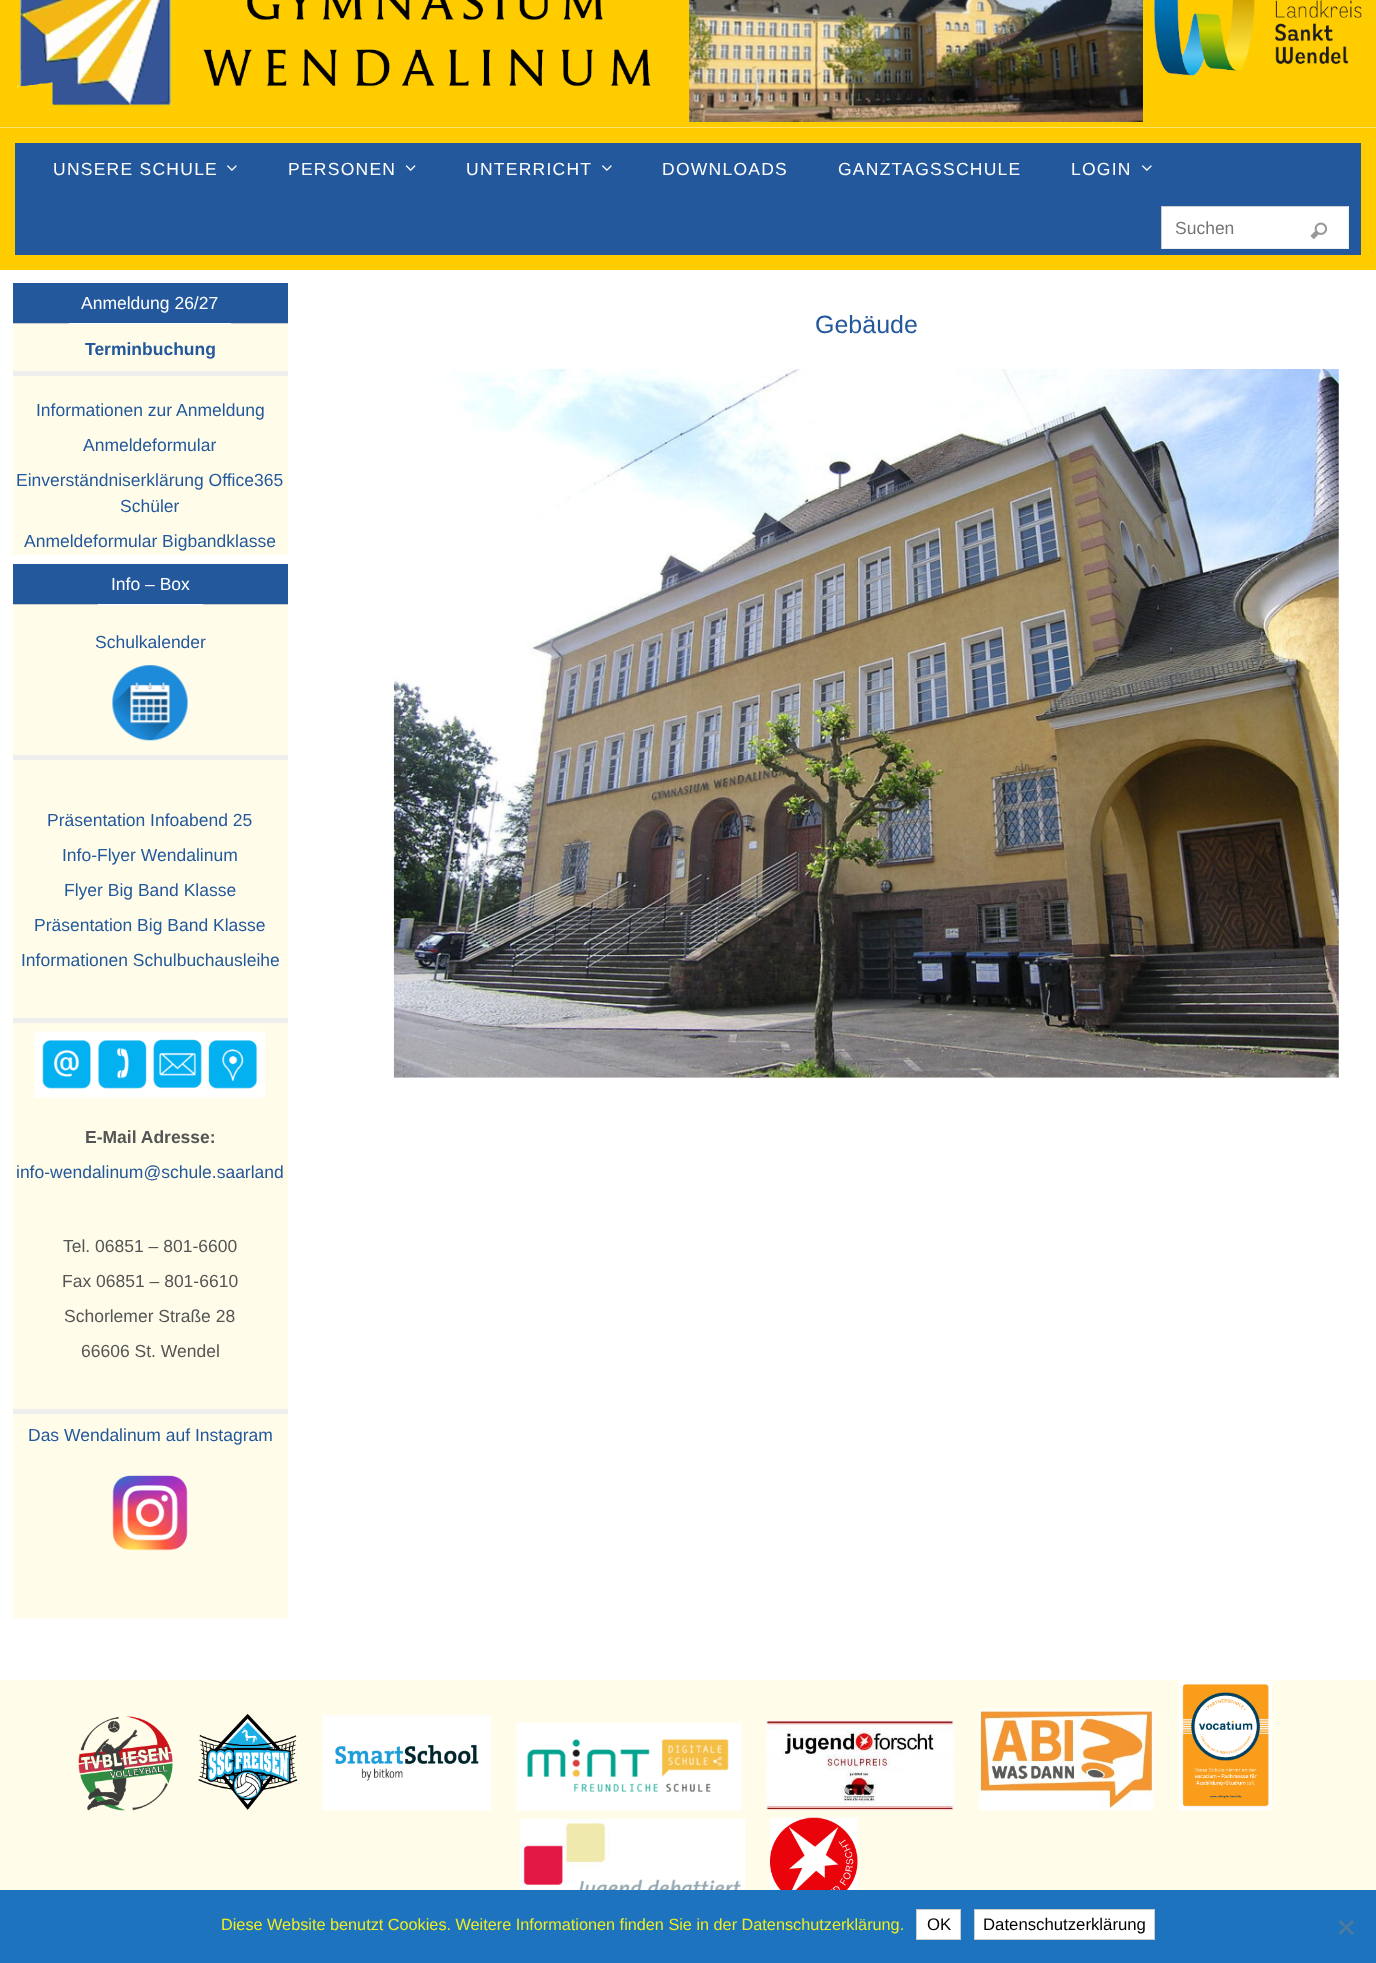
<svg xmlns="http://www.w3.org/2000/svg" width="1376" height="1963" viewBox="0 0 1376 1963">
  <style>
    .t1 { font: 17.5px Liberation Sans; letter-spacing: 1.25px; fill: #fff; }
    .t2 { font: 17.5px Liberation Sans; fill: #757575; }
    .t3 { font: 17.5px Liberation Sans; fill: #fff; }
    .t4 { font: bold 17.5px Liberation Sans; fill: #24589c; }
    .t5 { font: 17.5px Liberation Sans; fill: #24589c; }
    .t6 { font: bold 17.5px Liberation Sans; fill: #555; }
    .t7 { font: 17.5px Liberation Sans; fill: #555; }
    .t8 { font: 25px Liberation Sans; fill: #24589c; }
    .t9 { font: 16.25px Liberation Sans; fill: #ee2; }
    .t10 { font: 16.75px Liberation Sans; fill: #000; }
  </style>
  <rect width="100%" height="100%" fill="#fff"/>
  <image x="0" y="0" width="1376" height="128" href="images/1.png"/>
  <image x="689" y="0" width="454" height="122" href="images/2.png"/>
  <rect x="7.5" y="135.5" width="1361" height="127" fill="#24589c" stroke="#fc0" stroke-width="15"/>
  <text x="53" y="175" class="t1">UNSERE SCHULE</text>
  <image x="227" y="165" width="10" height="6" href="images/3.png"/>
  <text x="288" y="175" class="t1">PERSONEN</text>
  <image x="405" y="165" width="11" height="6" href="images/4.png"/>
  <text x="466" y="175" class="t1">UNTERRICHT</text>
  <image x="602" y="165" width="10" height="6" href="images/3.png"/>
  <text x="662" y="175" class="t1">DOWNLOADS</text>
  <text x="838" y="175" class="t1">GANZTAGSSCHULE</text>
  <text x="1071" y="175" class="t1">LOGIN</text>
  <image x="1142" y="165" width="10" height="6" href="images/3.png"/>
  <rect x="1162" y="207" width="186" height="41" fill="#fff"/>
  <rect x="1161" y="206" width="188" height="1" fill="#ccc"/>
  <rect x="1348" y="206" width="1" height="43" fill="#eee"/>
  <rect x="1161" y="248" width="188" height="1" fill="#eee"/>
  <rect x="1161" y="206" width="1" height="43" fill="#ccc"/>
  <text x="1175" y="234" class="t2">Suchen</text>
  <image x="1310" y="222" width="18" height="18" href="images/5.png"/>
  <rect x="13" y="324" width="275" height="231" fill="#fffde9"/>
  <rect x="13" y="283" width="275" height="40" fill="#24589c"/>
  <rect x="13" y="323" width="275" height="1" fill="#ccc"/>
  <rect x="69" y="323" width="162" height="1" fill="#fff"/>
  <text x="81" y="309" class="t3">Anmeldung 26/27</text>
  <text x="85" y="355" class="t4">Terminbuchung</text>
  <rect x="13" y="371" width="275" height="5" fill="#eee"/>
  <text x="36" y="416" class="t5">Informationen zur Anmeldung</text>
  <text x="83" y="451" class="t5">Anmeldeformular</text>
  <text x="16" y="486" class="t5">Einverständniserklärung Office365</text>
  <text x="120" y="512" class="t5">Schüler</text>
  <text x="24" y="547" class="t5">Anmeldeformular Bigbandklasse</text>
  <rect x="13" y="605" width="275" height="1013" fill="#fffde9"/>
  <rect x="13" y="564" width="275" height="40" fill="#24589c"/>
  <rect x="13" y="604" width="275" height="1" fill="#ccc"/>
  <rect x="98" y="604" width="105" height="1" fill="#fff"/>
  <text x="111" y="590" class="t3">Info – Box</text>
  <text x="95" y="648" class="t5">Schulkalender</text>
  <image x="112" y="665" width="76" height="76" href="images/6.png"/>
  <rect x="13" y="755" width="275" height="5" fill="#eee"/>
  <text x="47" y="826" class="t5">Präsentation Infoabend 25</text>
  <text x="62" y="861" class="t5">Info-Flyer Wendalinum</text>
  <text x="64" y="896" class="t5">Flyer Big Band Klasse</text>
  <text x="34" y="931" class="t5">Präsentation Big Band Klasse</text>
  <text x="21" y="966" class="t5">Informationen Schulbuchausleihe</text>
  <rect x="13" y="1018" width="275" height="5" fill="#eee"/>
  <image x="35" y="1031" width="230" height="67" href="images/7.png"/>
  <text x="85" y="1143" class="t6">E-Mail Adresse:</text>
  <text x="16" y="1178" class="t5">info-wendalinum@schule.saarland</text>
  <text x="63" y="1252" class="t7">Tel. 06851 – 801-6600</text>
  <text x="62" y="1287" class="t7">Fax 06851 – 801-6610</text>
  <text x="64" y="1322" class="t7">Schorlemer Straße 28</text>
  <text x="81" y="1357" class="t7">66606 St. Wendel</text>
  <rect x="13" y="1409" width="275" height="5" fill="#eee"/>
  <text x="28" y="1441" class="t5">Das Wendalinum auf Instagram</text>
  <image x="112" y="1475" width="76" height="76" href="images/8.png"/>
  <text x="815" y="333" class="t8">Gebäude</text>
  <image x="393" y="369" width="946" height="709" href="images/9.png"/>
  <rect x="0" y="1680" width="1376" height="210" fill="#fffde9"/>
  <image x="78" y="1716" width="95" height="95" href="images/10.png"/>
  <image x="198" y="1713" width="100" height="97" href="images/11.png"/>
  <image x="322" y="1715" width="170" height="96" href="images/12.png"/>
  <image x="516" y="1722" width="226" height="89" href="images/13.png"/>
  <image x="766" y="1720" width="188" height="91" href="images/14.png"/>
  <image x="978" y="1709" width="176" height="102" href="images/15.png"/>
  <image x="1178" y="1680" width="95" height="131" href="images/16.png"/>
  <image x="520" y="1819" width="225" height="71" href="images/17.png"/>
  <image x="770" y="1817" width="88" height="73" href="images/18.png"/>
  <rect x="0" y="1890" width="1376" height="73" fill="#1e73be"/>
  <text x="221" y="1930" class="t9">Diese Website benutzt Cookies. Weitere Informationen finden Sie in der Datenschutzerklärung.</text>
  <rect x="916.5" y="1909.5" width="44" height="30" fill="#fff" stroke="#ccc"/>
  <text x="927" y="1930" class="t10">OK</text>
  <rect x="974.5" y="1909.5" width="180" height="30" fill="#fff" stroke="#ccc"/>
  <text x="983" y="1930" class="t10">Datenschutzerklärung</text>
  <path d="M1352 1920L1354 1922L1340.5 1935L1338.5 1933Z" fill="#4f7a9f"/>
  <path d="M1338.5 1922L1340.5 1920L1354 1933L1352 1935Z" fill="#4f7a9f"/>
</svg>
